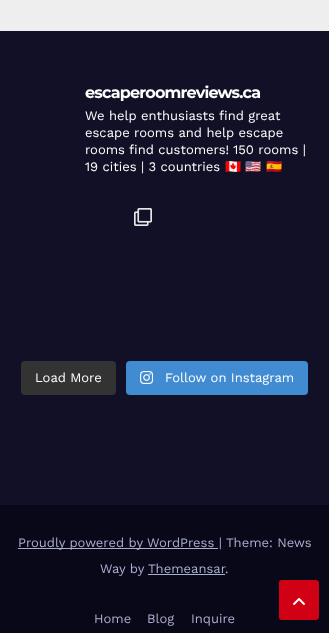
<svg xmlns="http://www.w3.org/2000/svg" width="329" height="633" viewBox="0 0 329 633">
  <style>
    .t1 { font: bold 16px Montserrat; letter-spacing: -0.8px; fill: #fff; }
    .t2 { font: 13px Work Sans; fill: #fff; }
    .t3 { font: 13px Noto Color Emoji; fill: #fff; }
    .t4 { font: 13px Work Sans; fill: #aaaed1; }
  </style>
  <rect width="100%" height="100%" fill="#eee"/>
  <rect x="0" y="31" width="329" height="474" fill="#121026"/>
  <text x="85" y="98" class="t1">escaperoomreviews.ca</text>
  <text x="85" y="120" class="t2">We help enthusiasts find great</text>
  <text x="85" y="137" class="t2">escape rooms and help escape</text>
  <text x="85" y="154" class="t2">rooms find customers! 150 rooms |</text>
  <text x="85" y="171" class="t2">19 cities | 3 countries</text>
  <text x="225" y="171" class="t3">🇨🇦</text>
  <text x="245" y="171" class="t3">🇺🇸</text>
  <text x="266" y="171" class="t3">🇪🇸</text>
  <image x="134" y="208" width="18" height="18" href="images/1.png"/>
  <rect x="21" y="361" width="95" height="34" rx="4" fill="#333"/>
  <text x="35" y="382" class="t2">Load More</text>
  <rect x="126" y="361" width="182" height="34" rx="4" fill="#408bd1"/>
  <image x="140" y="371" width="13" height="13" href="images/2.png"/>
  <text x="165" y="382" class="t2">Follow on Instagram</text>
  <rect x="0" y="505" width="329" height="128" fill="#090818"/>
  <rect x="18" y="548" width="200" height="1" fill="#aaaed1"/>
  <text x="18" y="547" class="t4">Proudly powered by WordPress |</text>
  <text x="226" y="547" class="t4">Theme: News</text>
  <text x="100" y="573" class="t4">Way by</text>
  <text x="148" y="573" class="t4">Themeansar</text>
  <rect x="148" y="574" width="77" height="1" fill="#aaaed1"/>
  <text x="225" y="573" class="t4">.</text>
  <text x="94" y="623" class="t4">Home</text>
  <text x="147" y="623" class="t4">Blog</text>
  <text x="191" y="623" class="t4">Inquire</text>
  <rect x="280" y="581" width="38" height="38" rx="2" fill="#d10014" stroke="#d10014" stroke-width="2"/>
  <image x="293" y="598" width="12" height="7" href="images/3.png"/>
</svg>
